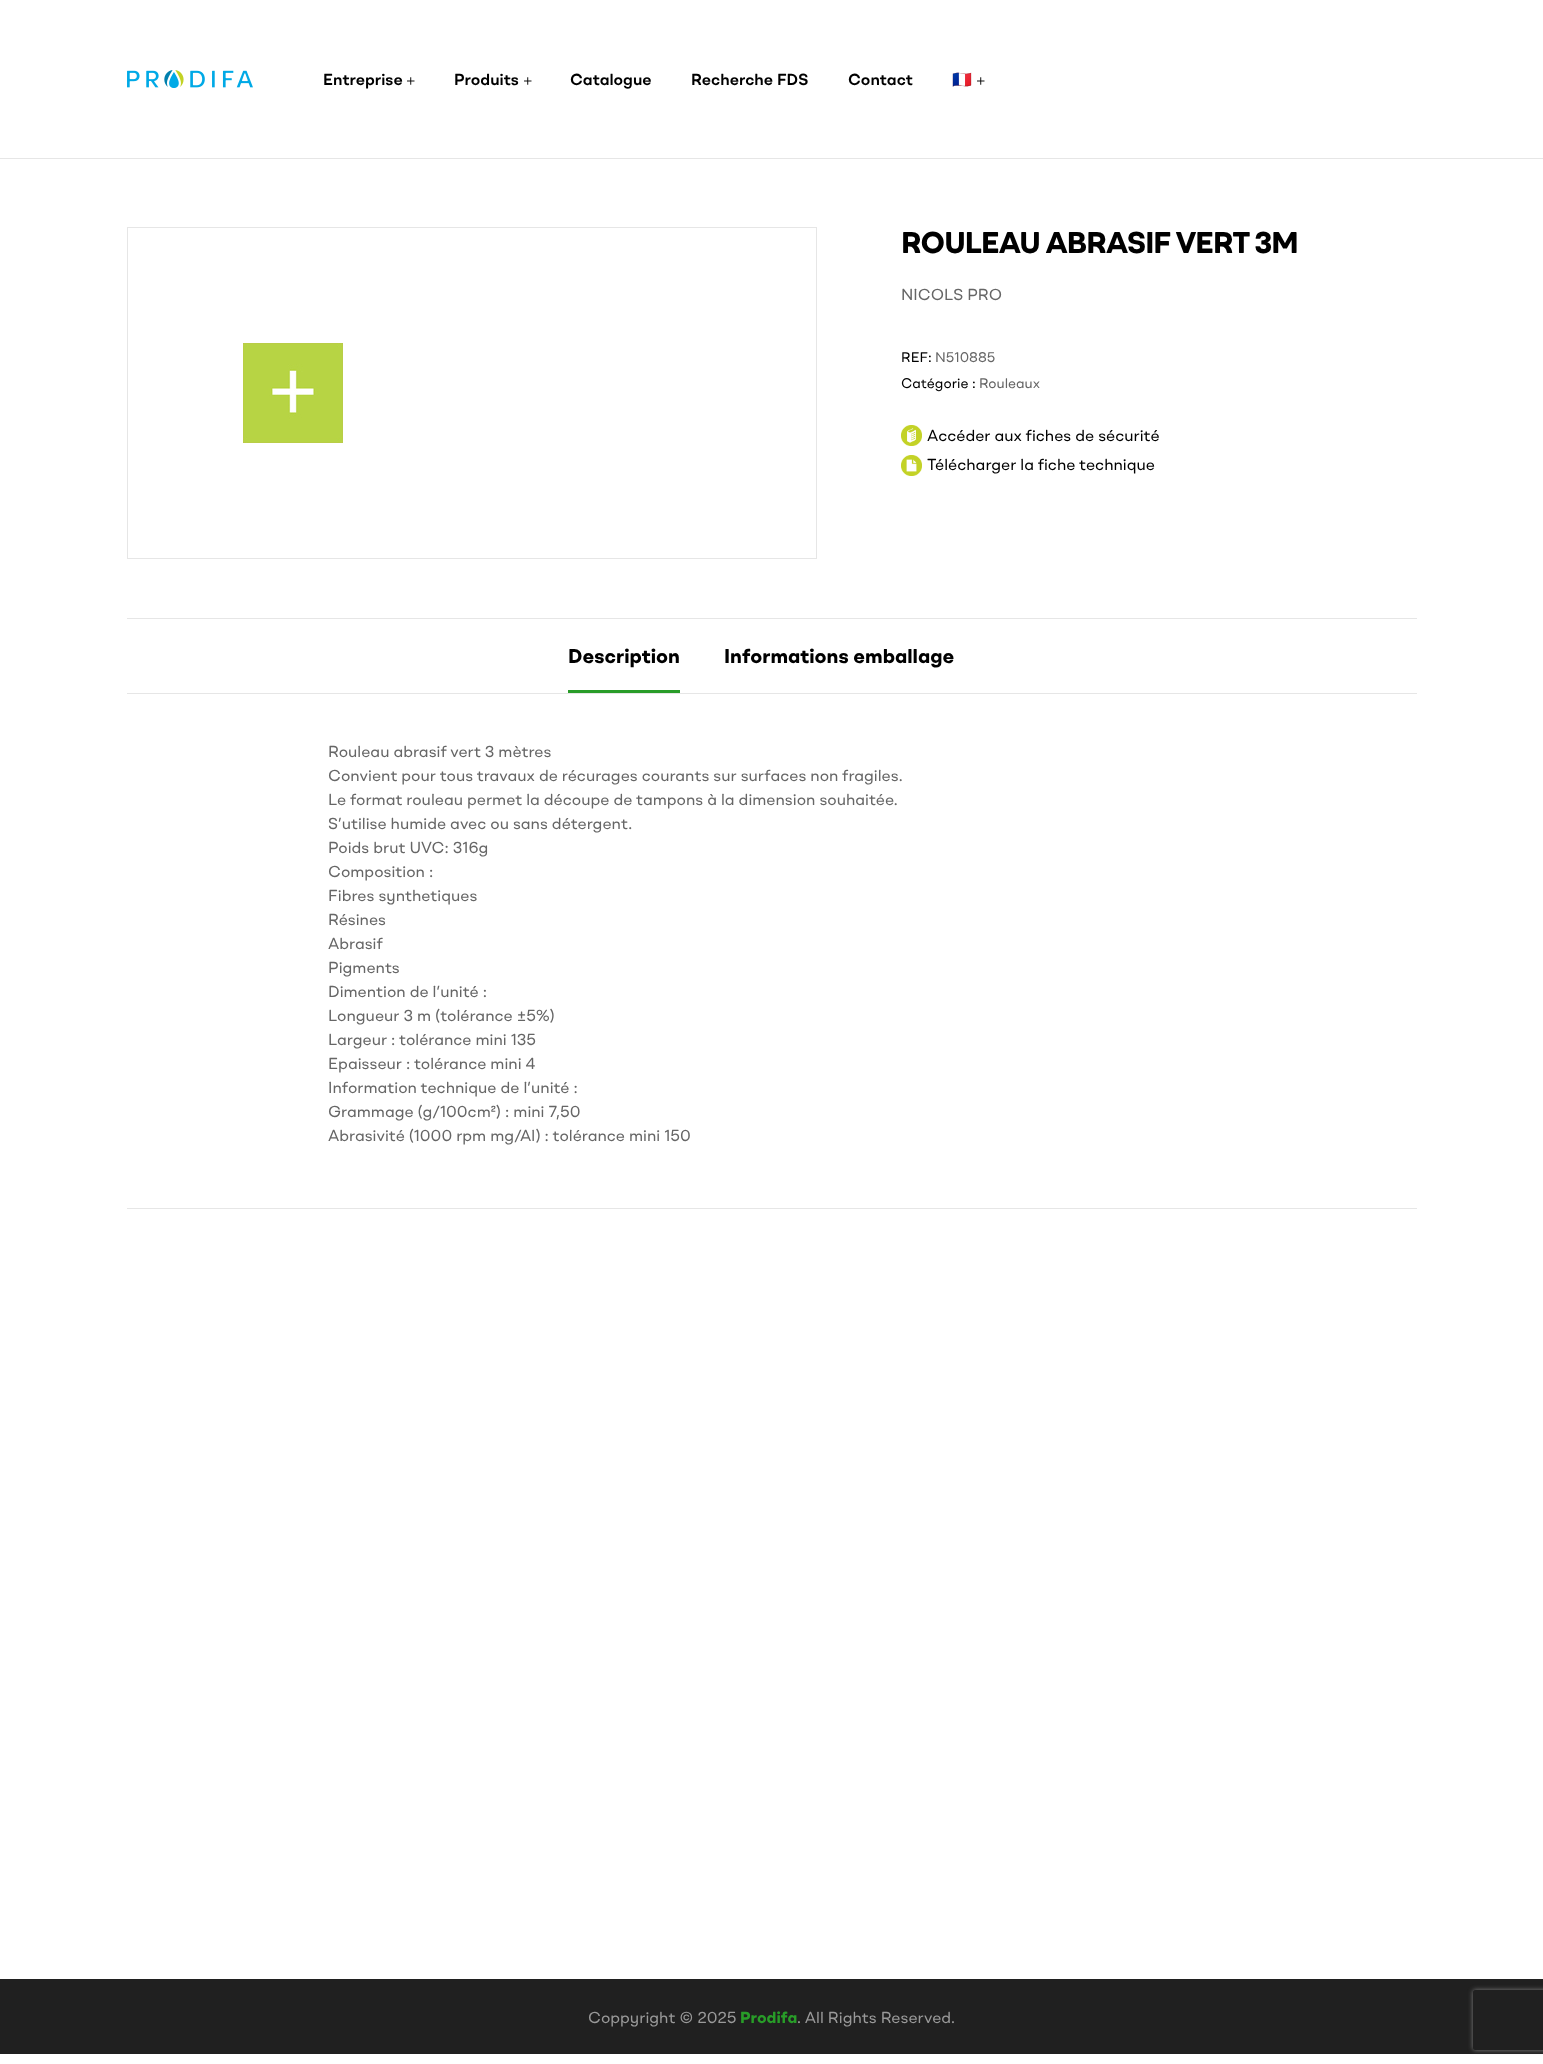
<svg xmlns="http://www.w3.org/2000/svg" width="1543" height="2064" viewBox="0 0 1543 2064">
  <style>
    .t1 { font: 600 16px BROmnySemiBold; fill: #000; }
    .t2 { font: bold 16px Noto Color Emoji; fill: #000; }
    .t3 { font: bold 30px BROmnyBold; letter-spacing: -1px; fill: #000; }
    .t4 { font: 16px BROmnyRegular; fill: #666; }
    .t5 { font: 14px BROmnyRegular; fill: #000; }
    .t6 { font: 14px BROmnyRegular; fill: #666; }
    .t7 { font: 16px BROmnyRegular; fill: #000; }
    .t8 { font: bold 20px BROmnyBold; fill: #000; }
    .t9 { font: 16px BROmnyRegular; fill: #999; }
    .t10 { font: bold 16px BROmnyBold; fill: #289c28; }
  </style>
  <defs>
    <clipPath id="clip1"><path d="M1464 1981H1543V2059H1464ZM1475 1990H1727C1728 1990 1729 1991 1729 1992V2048C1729 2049 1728 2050 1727 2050H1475C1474 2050 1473 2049 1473 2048V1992C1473 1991 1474 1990 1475 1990Z" clip-rule="evenodd"/></clipPath>
  </defs>
  <rect width="100%" height="100%" fill="#fff"/>
  <rect x="0" y="158" width="1543" height="1" fill="#e6e6e6"/>
  <image x="127" y="70" width="126" height="18" href="images/1.png"/>
  <text x="323" y="85" class="t1">Entreprise</text>
  <image x="407" y="77" width="8" height="8" href="images/2.png"/>
  <text x="454" y="85" class="t1">Produits</text>
  <image x="524" y="77" width="8" height="8" href="images/2.png"/>
  <text x="570" y="85" class="t1">Catalogue</text>
  <text x="691" y="85" class="t1">Recherche FDS</text>
  <text x="848" y="85" class="t1">Contact</text>
  <text x="952" y="85" class="t2">🇫🇷</text>
  <image x="977" y="77" width="8" height="8" href="images/2.png"/>
  <rect x="127.5" y="227.5" width="689" height="331" fill="none" stroke="#e6e6e6"/>
  <image x="243" y="343" width="100" height="100" href="images/3.png"/>
  <text x="901" y="253" class="t3">ROULEAU ABRASIF VERT 3M</text>
  <text x="901" y="300" class="t4">NICOLS PRO</text>
  <text x="901" y="362" class="t5">REF:</text>
  <text x="935" y="362" class="t6">N510885</text>
  <text x="901" y="388" class="t5">Catégorie :</text>
  <text x="979" y="388" class="t6">Rouleaux</text>
  <image x="901" y="425" width="21" height="21" href="images/4.png"/>
  <text x="927" y="441" class="t7">Accéder aux fiches de sécurité</text>
  <image x="901" y="455" width="21" height="21" href="images/5.png"/>
  <text x="927" y="470" class="t7">Télécharger la fiche technique</text>
  <rect x="127" y="618" width="1290" height="1" fill="#e6e6e6"/>
  <rect x="127" y="1208" width="1290" height="1" fill="#e6e6e6"/>
  <rect x="127" y="693" width="1290" height="1" fill="#e6e6e6"/>
  <text x="568" y="663" class="t8">Description</text>
  <rect x="568" y="690" width="112" height="3" fill="#289c28"/>
  <text x="724" y="663" class="t8">Informations emballage</text>
  <text x="328" y="757" class="t4">Rouleau abrasif vert 3 mètres</text>
  <text x="328" y="781" class="t4">Convient pour tous travaux de récurages courants sur surfaces non fragiles.</text>
  <text x="328" y="805" class="t4">Le format rouleau permet la découpe de tampons à la dimension souhaitée.</text>
  <text x="328" y="829" class="t4">S’utilise humide avec ou sans détergent.</text>
  <text x="328" y="853" class="t4">Poids brut UVC: 316g</text>
  <text x="328" y="877" class="t4">Composition :</text>
  <text x="328" y="901" class="t4">Fibres synthetiques</text>
  <text x="328" y="925" class="t4">Résines</text>
  <text x="328" y="949" class="t4">Abrasif</text>
  <text x="328" y="973" class="t4">Pigments</text>
  <text x="328" y="997" class="t4">Dimention de l’unité :</text>
  <text x="328" y="1021" class="t4">Longueur 3 m (tolérance ±5%)</text>
  <text x="328" y="1045" class="t4">Largeur : tolérance mini 135</text>
  <text x="328" y="1069" class="t4">Epaisseur : tolérance mini 4</text>
  <text x="328" y="1093" class="t4">Information technique de l’unité :</text>
  <text x="328" y="1117" class="t4">Grammage (g/100cm²) : mini 7,50</text>
  <text x="328" y="1141" class="t4">Abrasivité (1000 rpm mg/Al) : tolérance mini 150</text>
  <rect x="0" y="1979" width="1543" height="75" fill="#202020"/>
  <text x="588" y="2023" class="t9">Coppyright © 2025</text>
  <text x="740" y="2023" class="t10">Prodifa</text>
  <text x="797" y="2023" class="t9">. All Rights Reserved.</text>
  <g clip-path="url(#clip1)">
    <rect x="1473" y="1990" width="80" height="60" rx="2" fill="#808080" filter="blur(2.5px)"/>
  </g>
</svg>
